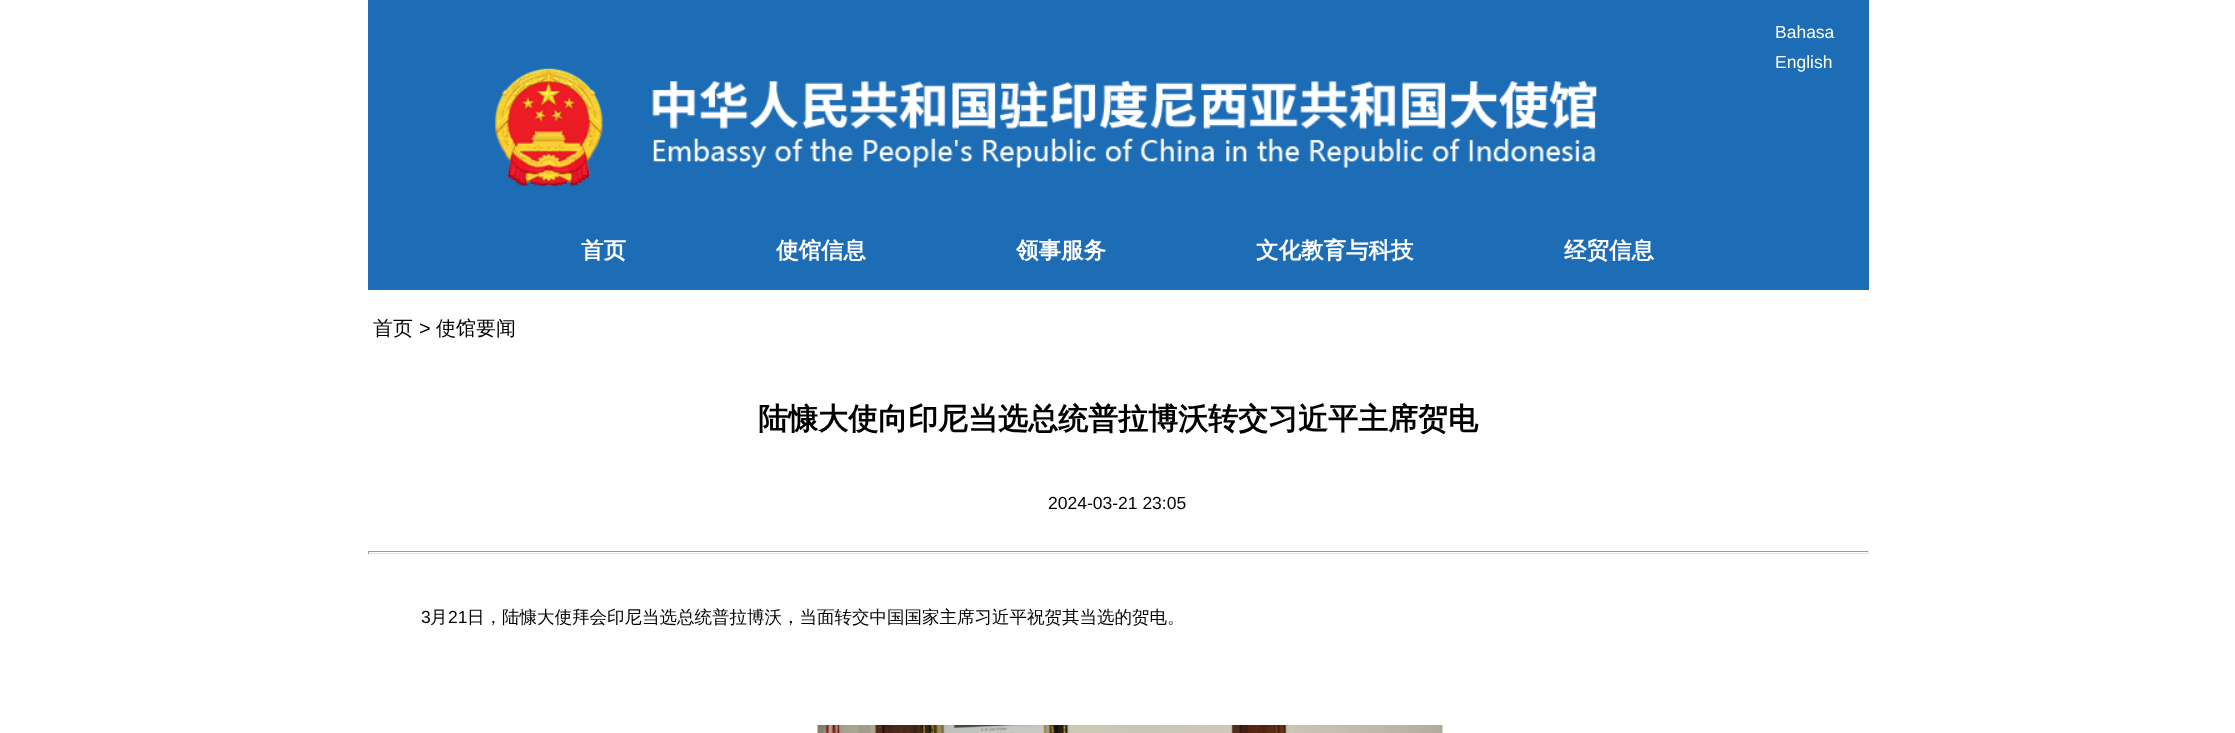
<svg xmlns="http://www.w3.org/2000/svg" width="2235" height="733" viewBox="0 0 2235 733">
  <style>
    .t1 { font: 17.5px Liberation Sans; fill: #fff; }
    .t2 { font: bold 22.5px WenQuanYi Zen Hei; fill: #fff; }
    .t3 { font: 500 20px WenQuanYi Zen Hei; fill: #000; }
    .t4 { font: 20px Liberation Sans; fill: #000; }
    .t5 { font: bold 30px WenQuanYi Zen Hei; fill: #000; }
    .t6 { font: 17.5px Liberation Sans; fill: #000; }
    .t7 { font: 500 17.5px WenQuanYi Zen Hei; fill: #000; }
  </style>
  <rect width="100%" height="100%" fill="#fff"/>
  <rect x="368" y="0" width="1501" height="290" fill="#1c6cb6"/>
  <image x="494" y="68" width="1103" height="119" href="images/1.png"/>
  <text x="1775" y="38" class="t1">Bahasa</text>
  <text x="1775" y="68" class="t1">English</text>
  <text x="581" y="258" class="t2">首页</text>
  <text x="776" y="258" class="t2">使馆信息</text>
  <text x="1016" y="258" class="t2">领事服务</text>
  <text x="1256" y="258" class="t2">文化教育与科技</text>
  <text x="1564" y="258" class="t2">经贸信息</text>
  <text x="373" y="335" class="t3">首页</text>
  <text x="419" y="335" class="t4">&gt;</text>
  <text x="436" y="335" class="t3">使馆要闻</text>
  <text x="758" y="429" class="t5">陆慷大使向印尼当选总统普拉博沃转交习近平主席贺电</text>
  <text x="1048" y="509" class="t6">2024-03-21 23:05</text>
  <rect x="368" y="551" width="1501" height="1" fill="#999"/>
  <rect x="1868" y="551" width="1" height="3" fill="#e5e5e5"/>
  <rect x="368" y="553" width="1501" height="1" fill="#e5e5e5"/>
  <rect x="368" y="551" width="1" height="3" fill="#999"/>
  <text x="421" y="623" class="t6">3</text>
  <text x="430" y="623" class="t7">月</text>
  <text x="448" y="623" class="t6">21</text>
  <text x="467" y="623" class="t7">日，陆慷大使拜会印尼当选总统普拉博沃，当面转交中国国家主席习近平祝贺其当选的贺电。</text>
  <image x="817" y="725" width="626" height="8" href="images/2.png"/>
</svg>
